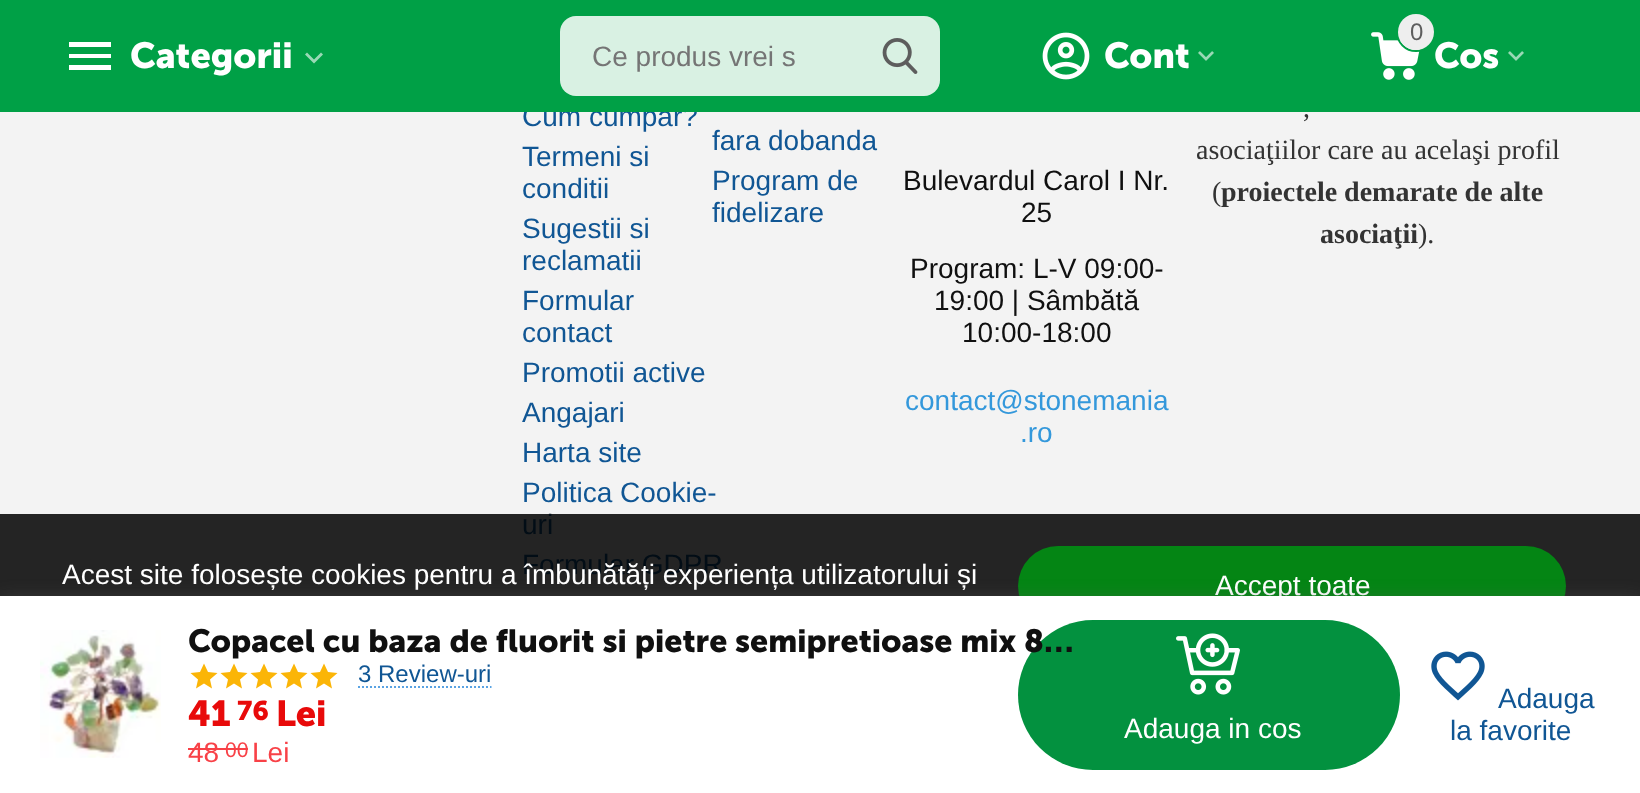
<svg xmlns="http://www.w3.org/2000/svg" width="1640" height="793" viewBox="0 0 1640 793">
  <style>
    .t1 { font: 28px Liberation Sans; fill: #105694; }
    .t2 { font: bold 36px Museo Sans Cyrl; fill: #fff; }
    .t3 { font: 28px Liberation Sans; fill: #757575; }
    .t4 { font: 24px Liberation Sans; fill: #5d5d5d; }
    .t5 { font: 28px Liberation Sans; fill: #020d16; }
    .t6 { font: 28px Liberation Sans; fill: #101010; }
    .t7 { font: 28px Liberation Sans; fill: #3498db; }
    .t8 { font: 28px Liberation Serif; fill: #333; }
    .t9 { font: bold 28px Liberation Serif; fill: #333; }
    .t10 { font: 28px Liberation Sans; fill: #fff; }
    .t11 { font: bold 32px Museo Sans Cyrl; fill: #101010; }
    .t12 { font: 24px Liberation Sans; fill: #105694; }
    .t13 { font: bold 36px Museo Sans Cyrl; fill: #e80a0a; }
    .t14 { font: bold 27px Museo Sans Cyrl; fill: #e80a0a; }
    .t15 { font: 28px Liberation Sans; fill: #f84147; }
    .t16 { font: 21px Liberation Sans; fill: #f84147; }
  </style>
  <rect width="100%" height="100%" fill="#f3f3f3"/>
  <text x="522" y="126" class="t1">Cum cumpar?</text>
  <rect x="0" y="0" width="1640" height="112" fill="#00a046"/>
  <path d="M69 70H111V65H69ZM69 58H111V54H69ZM69 42V47H111V42Z" fill="#fff"/>
  <text x="130" y="68" class="t2">Categorii</text>
  <path d="M321 52.5L314 59.5L307 52.5L305 54.5L314 63.5L323 54.5Z" fill="#99d9b5"/>
  <rect x="560" y="16" width="380" height="80" rx="16" fill="#d9f1e3"/>
  <text x="592" y="66" class="t3">Ce produs vrei s</text>
  <image x="882" y="38" width="36" height="36" href="images/1.png"/>
  <image x="1042" y="32" width="48" height="48" href="images/2.png"/>
  <text x="1104" y="68" class="t2">Cont</text>
  <image x="1198" y="51" width="16" height="10" href="images/3.png"/>
  <image x="1371" y="32" width="49" height="48" href="images/4.png"/>
  <text x="1434" y="68" class="t2">Cos</text>
  <circle cx="1416" cy="32" r="19" fill="none" stroke="#00a046" stroke-width="2"/>
  <circle cx="1416" cy="32" r="18" fill="#eee"/>
  <text x="1410" y="40" class="t4">0</text>
  <image x="1508" y="51" width="16" height="10" href="images/3.png"/>
  <rect x="0" y="514" width="1640" height="82" fill="#242424"/>
  <text x="522" y="166" class="t1">Termeni si</text>
  <text x="522" y="198" class="t1">conditii</text>
  <text x="522" y="238" class="t1">Sugestii si</text>
  <text x="522" y="270" class="t1">reclamatii</text>
  <text x="522" y="310" class="t1">Formular</text>
  <text x="522" y="342" class="t1">contact</text>
  <text x="522" y="382" class="t1">Promotii active</text>
  <text x="522" y="422" class="t1">Angajari</text>
  <text x="522" y="462" class="t1">Harta site</text>
  <text x="522" y="502" class="t1">Politica Cookie-</text>
  <text x="522" y="534" class="t5">uri</text>
  <text x="522" y="574" class="t5">Formular GDPR</text>
  <text x="712" y="150" class="t1">fara dobanda</text>
  <text x="712" y="190" class="t1">Program de</text>
  <text x="712" y="222" class="t1">fidelizare</text>
  <text x="903" y="190" class="t6">Bulevardul Carol I Nr.</text>
  <text x="1021" y="222" class="t6">25</text>
  <text x="910" y="278" class="t6">Program: L-V 09:00-</text>
  <text x="934" y="310" class="t6">19:00 | Sâmbătă</text>
  <text x="962" y="342" class="t6">10:00-18:00</text>
  <text x="905" y="410" class="t7">contact@stonemania</text>
  <text x="1020" y="442" class="t7">.ro</text>
  <text x="1303" y="117" class="t8">,</text>
  <text x="1196" y="159" class="t8">asociaţiilor care au acelaşi profil</text>
  <text x="1212" y="201" class="t8">(</text>
  <text x="1221" y="201" class="t9">proiectele demarate de alte</text>
  <text x="1320" y="243" class="t9">asociaţii</text>
  <text x="1418" y="243" class="t8">).</text>
  <text x="62" y="584" class="t10">Acest site folosește cookies pentru a îmbunătăți experiența utilizatorului și</text>
  <rect x="1018" y="546" width="548" height="80" rx="40" fill="#048514"/>
  <text x="1215" y="595" class="t10">Accept toate</text>
  <rect x="0" y="602" width="1640" height="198" fill="#63636380" filter="blur(10px)"/>
  <rect x="0" y="596" width="1640" height="197" fill="#fff"/>
  <image x="40" y="630" width="121" height="128" href="images/5.png"/>
  <rect x="1018" y="620" width="382" height="150" rx="75" fill="#03913f"/>
  <text x="188" y="652" class="t11">Copacel cu baza de fluorit si pietre semipretioase mix 8…</text>
  <path d="M204 683.5L212 688.5L210 679.5L217.5 673L208 672L204 663.5L200 672L190.5 673L198 679.5L196 688.5ZM234 683.5L242 688.5L240 679.5L247.5 673L238 672L234 663.5L230 672L220.5 673L228 679.5L226 688.5Z" fill="#fbb507"/>
  <path d="M264 683.5L272 688.5L270 679.5L277.5 673L268 672L264 663.5L260 672L250.5 673L258 679.5L256 688.5ZM294 683.5L302 688.5L300 679.5L307.5 673L298 672L294 663.5L290 672L280.5 673L288 679.5L286 688.5Z" fill="#fbb507"/>
  <path d="M324 683.5L332 688.5L330 679.5L337.5 673L328 672L324 663.5L320 672L310.5 673L318 679.5L316 688.5Z" fill="#fbb507"/>
  <text x="358" y="682" class="t12">3 Review-uri</text>
  <path d="M358 687H491.5" fill="none" stroke="#5aa3e3" stroke-width="2" stroke-dasharray="2 2"/>
  <text x="188" y="726" class="t13">41</text>
  <text x="237" y="720" class="t14">76</text>
  <text x="276" y="726" class="t13">Lei</text>
  <text x="188" y="762" class="t15">48</text>
  <text x="225" y="757" class="t16">00</text>
  <rect x="188" y="748" width="60" height="2" fill="#f84147"/>
  <text x="252" y="762" class="t15">Lei</text>
  <image x="1176" y="633" width="64" height="62" href="images/6.png"/>
  <text x="1124" y="738" class="t10">Adauga in cos</text>
  <image x="1431" y="651" width="54" height="50" href="images/7.png"/>
  <text x="1498" y="708" class="t1">Adauga</text>
  <text x="1450" y="740" class="t1">la favorite</text>
</svg>
